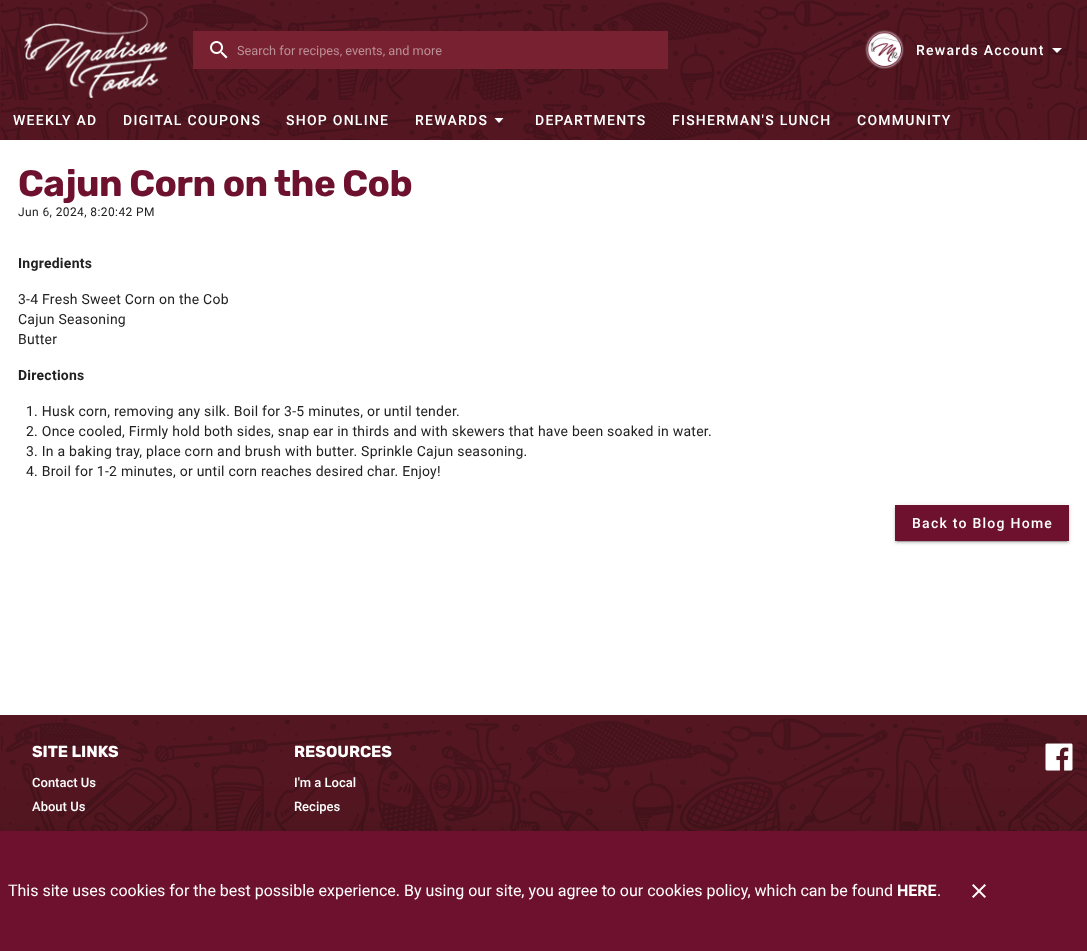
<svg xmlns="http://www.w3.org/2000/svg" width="1087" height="951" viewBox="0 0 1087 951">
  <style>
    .t1 { font: 12.75px Roboto; fill: #bc9098; }
    .t2 { font: 500 14px Roboto; letter-spacing: 1.25px; fill: #fff; }
    .t3 { font: 300 36.75px Rubik; letter-spacing: -0.6px; fill: #6d112f; }
    .t4 { font: 12px Roboto; letter-spacing: 0.4px; fill: #212121; }
    .t5 { font: bold 14px Roboto; letter-spacing: 0.25px; fill: #212121; }
    .t6 { font: 14px Roboto; letter-spacing: 0.25px; fill: #212121; }
    .t7 { font: 300 16px Rubik; fill: #fff; }
    .t8 { font: 500 13px Roboto; fill: #fff; }
    .t9 { font: 16px Roboto; fill: #fff; }
    .t10 { font: bold 16px Roboto; fill: #fff; }
  </style>
  <rect width="100%" height="100%" fill="#541621"/>
  <image x="1" y="0" width="1086" height="100" href="images/1.png"/>
  <image x="24" y="2" width="144" height="96" href="images/2.png"/>
  <rect x="193" y="31" width="475" height="38" fill="#782131"/>
  <image x="210" y="41" width="18" height="18" href="images/3.png"/>
  <text x="237" y="55" class="t1">Search for recipes, events, and more</text>
  <image x="865" y="30" width="39" height="39" href="images/4.png"/>
  <text x="916" y="55" class="t2">Rewards Account</text>
  <path d="M1052 48L1057 53L1062 48Z" fill="#fff"/>
  <image x="0" y="100" width="1087" height="40" href="images/5.png"/>
  <text x="13" y="125" class="t2">WEEKLY AD</text>
  <text x="123" y="125" class="t2">DIGITAL COUPONS</text>
  <text x="286" y="125" class="t2">SHOP ONLINE</text>
  <text x="415" y="125" class="t2">REWARDS</text>
  <path d="M494.5 118L499 123L503.5 118Z" fill="#fff"/>
  <text x="535" y="125" class="t2">DEPARTMENTS</text>
  <text x="672" y="125" class="t2">FISHERMAN'S LUNCH</text>
  <text x="857" y="125" class="t2">COMMUNITY</text>
  <rect x="0" y="140" width="1087" height="575" fill="#fff"/>
  <text x="18" y="196" class="t3">Cajun Corn on the Cob</text>
  <text x="18" y="216" class="t4">Jun 6, 2024, 8:20:42 PM</text>
  <text x="18" y="268" class="t5">Ingredients</text>
  <text x="18" y="304" class="t6">3-4 Fresh Sweet Corn on the Cob</text>
  <text x="18" y="324" class="t6">Cajun Seasoning</text>
  <text x="18" y="344" class="t6">Butter</text>
  <text x="18" y="380" class="t5">Directions</text>
  <text x="26" y="416" class="t6">1. Husk corn, removing any silk. Boil for 3-5 minutes, or until tender.</text>
  <text x="26" y="436" class="t6">2. Once cooled, Firmly hold both sides, snap ear in thirds and with skewers that have been soaked in water.</text>
  <text x="26" y="456" class="t6">3. In a baking tray, place corn and brush with butter. Sprinkle Cajun seasoning.</text>
  <text x="26" y="476" class="t6">4. Broil for 1-2 minutes, or until corn reaches desired char. Enjoy!</text>
  <rect x="895" y="506" width="174" height="36" fill="#0000001f" filter="blur(2.5px)"/>
  <rect x="895" y="507" width="174" height="36" fill="#00000024" filter="blur(1px)"/>
  <rect x="897" y="510" width="170" height="32" fill="#00000033" filter="blur(0.5px)"/>
  <rect x="895" y="505" width="174" height="36" fill="#6d112f"/>
  <text x="912" y="528" class="t2">Back to Blog Home</text>
  <image x="0" y="715" width="1087" height="116" href="images/6.png"/>
  <text x="32" y="757" class="t7">SITE LINKS</text>
  <text x="32" y="787" class="t8">Contact Us</text>
  <text x="32" y="811" class="t8">About Us</text>
  <text x="294" y="757" class="t7">RESOURCES</text>
  <text x="294" y="787" class="t8">I'm a Local</text>
  <text x="294" y="811" class="t8">Recipes</text>
  <image x="1045" y="743" width="28" height="28" href="images/7.png"/>
  <rect x="-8" y="832" width="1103" height="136" fill="#0000001f" filter="blur(23px)"/>
  <rect x="0" y="831" width="1087" height="120" fill="#6d112f"/>
  <text x="8" y="896" class="t9">This site uses cookies for the best possible experience. By using our site, you agree to our cookies policy, which can be found</text>
  <text x="897" y="896" class="t10">HERE</text>
  <text x="937" y="896" class="t9">.</text>
  <image x="972" y="884" width="14" height="14" href="images/8.png"/>
</svg>
